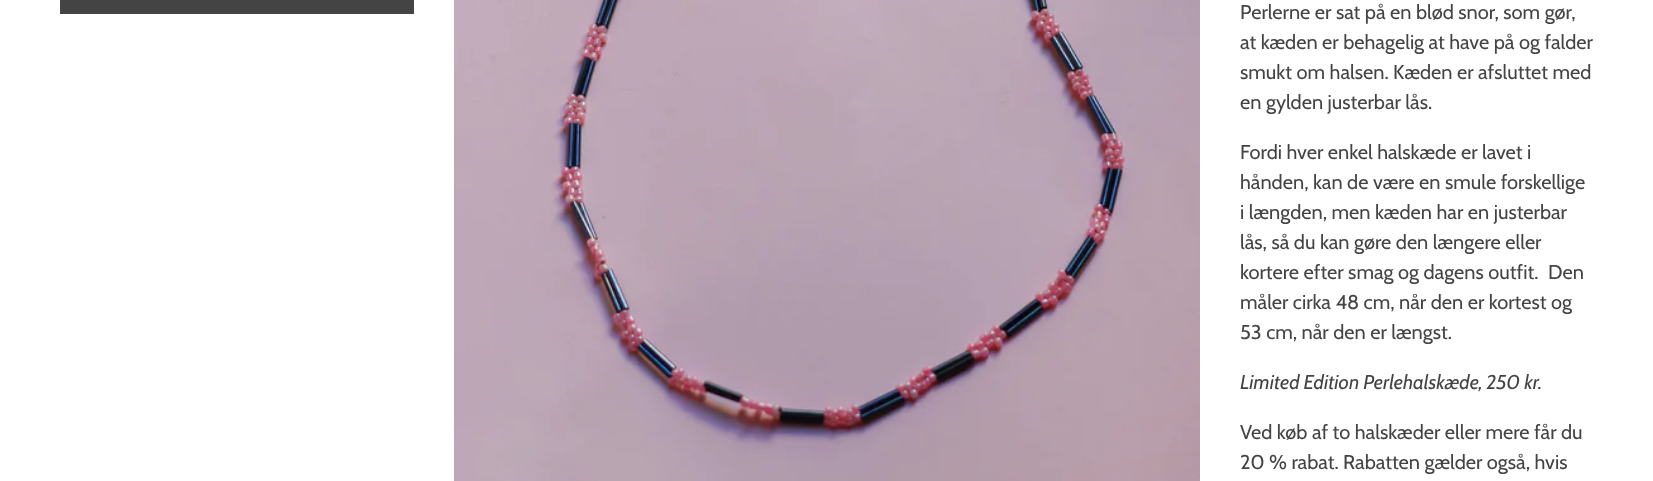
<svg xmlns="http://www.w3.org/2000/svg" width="1653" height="481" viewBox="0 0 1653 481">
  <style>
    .t1 { font: 20px Cabin; fill: #444; }
    .t2 { font: italic 20px Cabin; fill: #444; }
  </style>
  <rect width="100%" height="100%" fill="#fff"/>
  <rect x="60" y="0" width="354" height="14" fill="#444"/>
  <image x="453" y="0" width="747" height="481" href="images/1.png"/>
  <text x="1240" y="19" class="t1">Perlerne er sat på en blød snor, som gør,</text>
  <text x="1240" y="49" class="t1">at kæden er behagelig at have på og falder</text>
  <text x="1240" y="79" class="t1">smukt om halsen. Kæden er afsluttet med</text>
  <text x="1240" y="109" class="t1">en gylden justerbar lås.</text>
  <text x="1240" y="159" class="t1">Fordi hver enkel halskæde er lavet i</text>
  <text x="1240" y="189" class="t1">hånden, kan de være en smule forskellige</text>
  <text x="1240" y="219" class="t1">i længden, men kæden har en justerbar</text>
  <text x="1240" y="249" class="t1">lås, så du kan gøre den længere eller</text>
  <text x="1240" y="279" class="t1">kortere efter smag og dagens outfit.</text>
  <text x="1548" y="279" class="t1">Den</text>
  <text x="1240" y="309" class="t1">måler cirka 48 cm, når den er kortest og</text>
  <text x="1240" y="339" class="t1">53 cm, når den er længst.</text>
  <text x="1240" y="389" class="t2">Limited Edition Perlehalskæde, 250 kr.</text>
  <text x="1240" y="439" class="t1">Ved køb af to halskæder eller mere får du</text>
  <text x="1240" y="469" class="t1">20 % rabat. Rabatten gælder også, hvis</text>
</svg>
